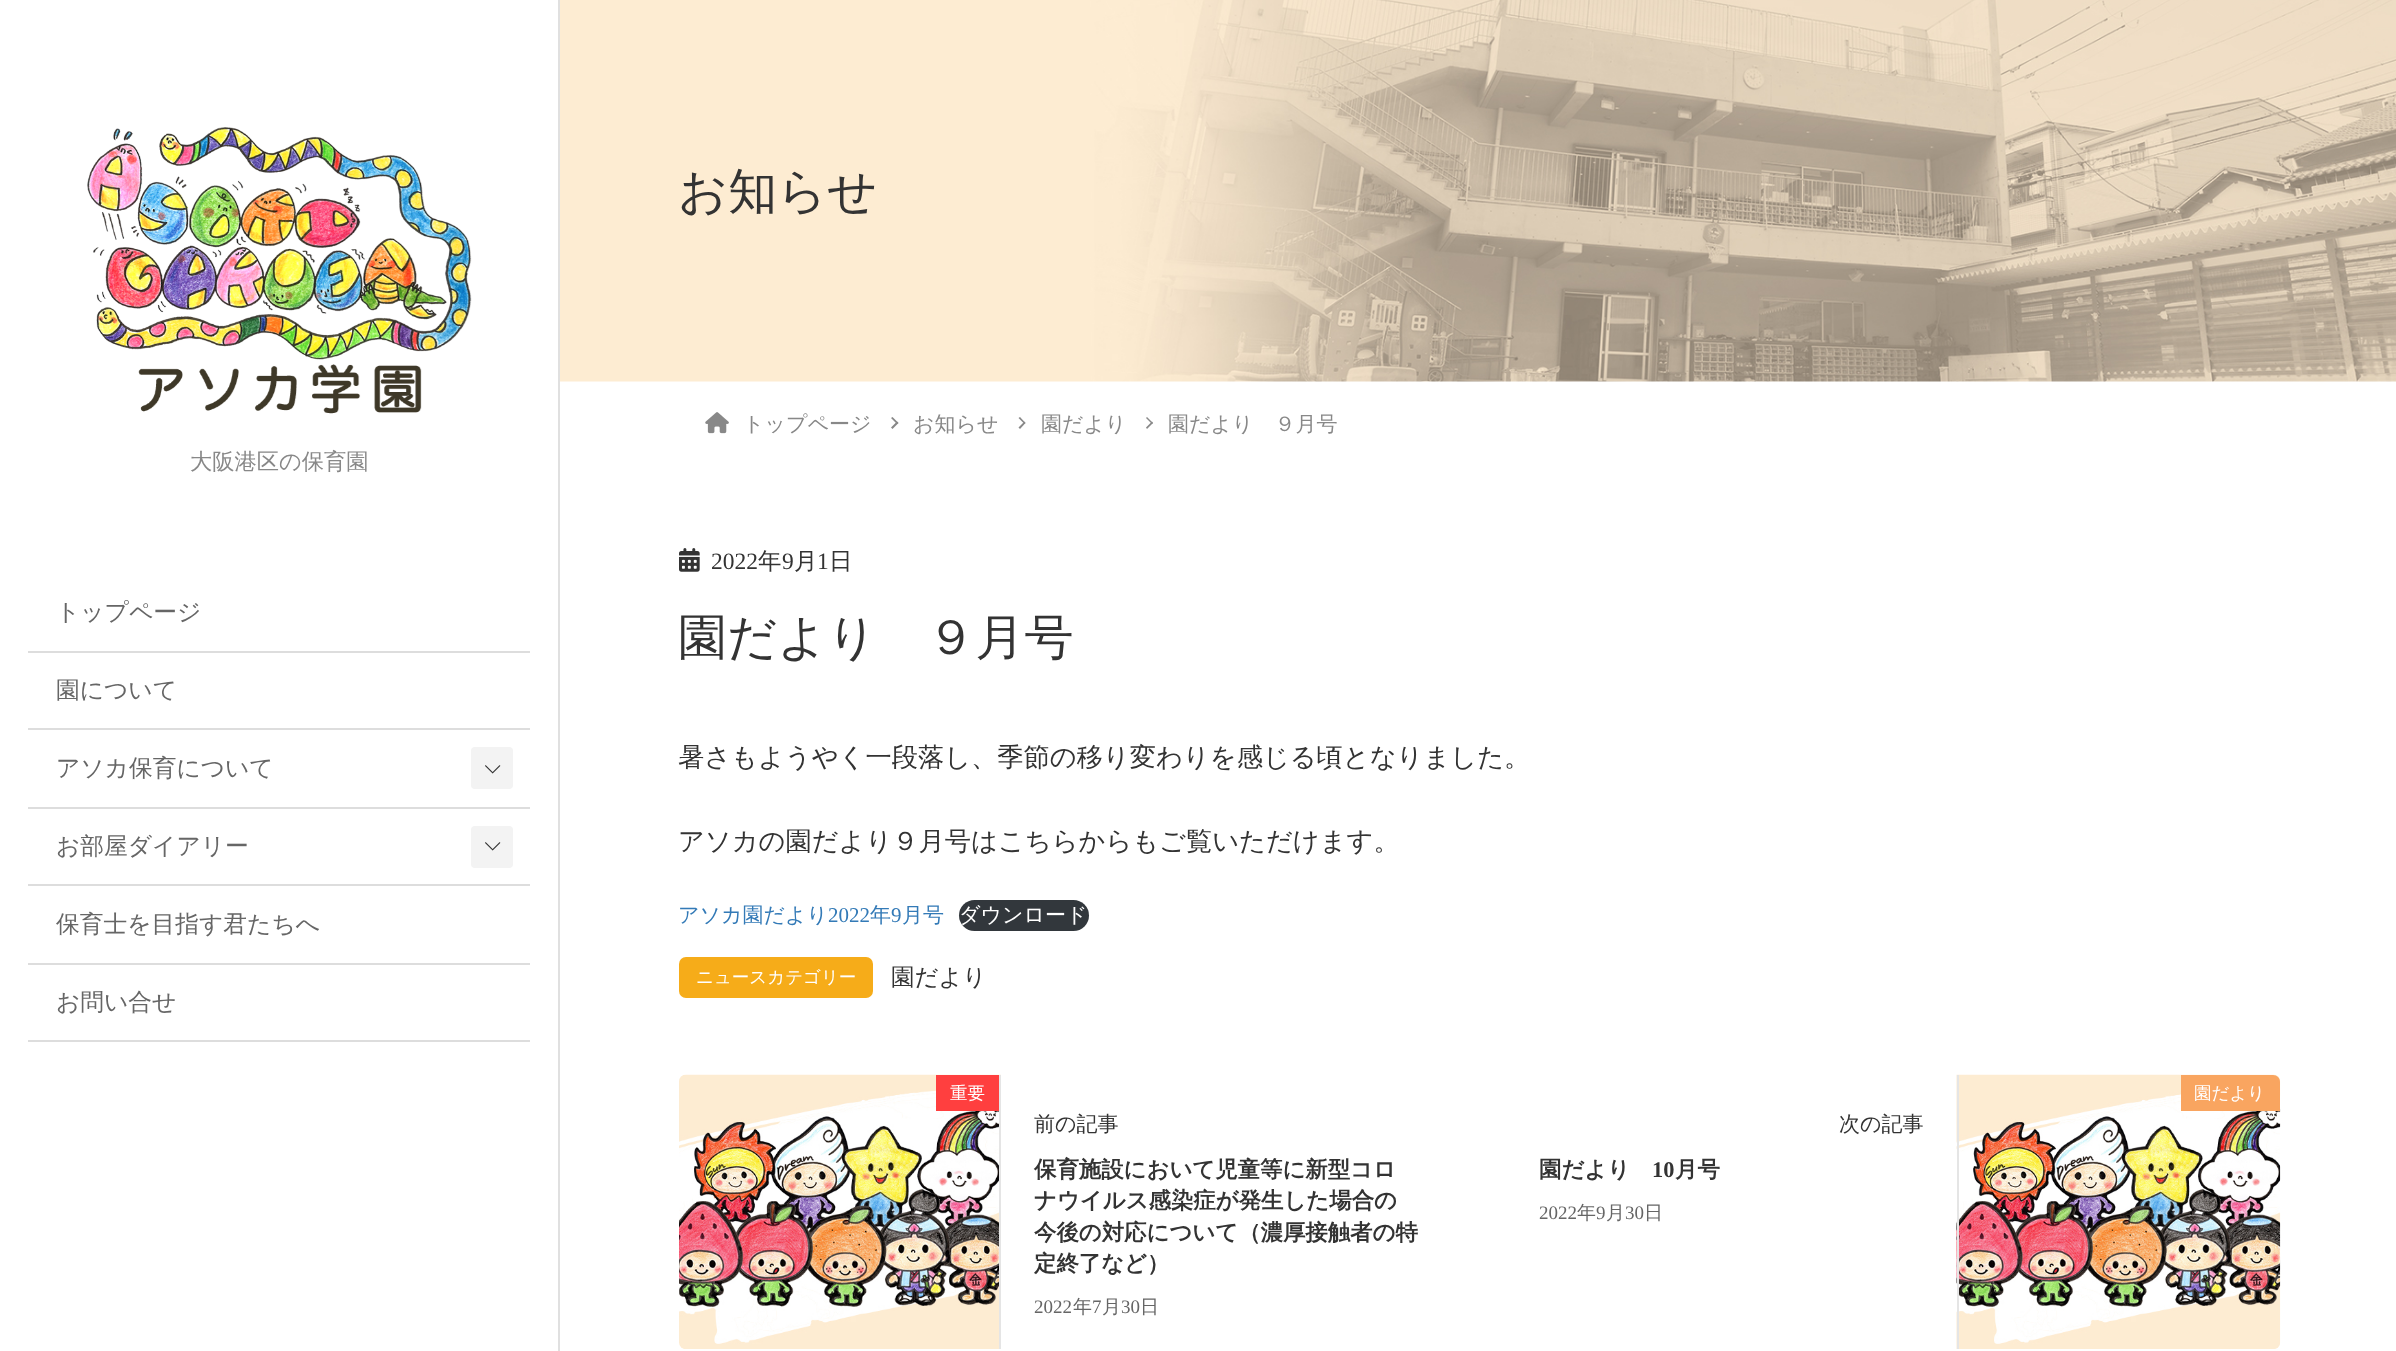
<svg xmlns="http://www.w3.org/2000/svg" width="2396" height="1351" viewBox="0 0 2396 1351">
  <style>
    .t1 { font: 500 22.25px WenQuanYi Zen Hei; fill: #888; }
    .t2 { font: 500 23.75px WenQuanYi Zen Hei; fill: #666; }
    .t3 { font: 500 49px WenQuanYi Zen Hei; fill: #333; }
    .t4 { font: 500 21px WenQuanYi Zen Hei; fill: #888; }
    .t5 { font: 23.5px Liberation Serif; fill: #333; }
    .t6 { font: 500 23.5px WenQuanYi Zen Hei; fill: #333; }
    .t7 { font: 500 26.25px WenQuanYi Zen Hei; fill: #333; }
    .t8 { font: 500 21px WenQuanYi Zen Hei; fill: #337ab7; }
    .t9 { font: 21px Liberation Serif; fill: #337ab7; }
    .t10 { font: 500 21px WenQuanYi Zen Hei; fill: #fff; }
    .t11 { font: 500 17.5px WenQuanYi Zen Hei; fill: #fff; }
    .t12 { font: 500 21px WenQuanYi Zen Hei; fill: #333; }
    .t13 { font: bold 22.4px WenQuanYi Zen Hei; fill: #333; }
    .t14 { font: 19px Liberation Serif; fill: #666; }
    .t15 { font: 500 19px WenQuanYi Zen Hei; fill: #666; }
    .t16 { font: bold 22.4px Liberation Serif; fill: #333; }
  </style>
  <rect width="100%" height="100%" fill="#fff"/>
  <rect x="558" y="0" width="2" height="1351" fill="#e0e0e0"/>
  <image x="87" y="127" width="385" height="287" href="images/1.png"/>
  <text x="190" y="469" class="t1">大阪港区の保育園</text>
  <rect x="28" y="651" width="502" height="2" fill="#ddd"/>
  <text x="56" y="620" class="t2">トップページ</text>
  <rect x="28" y="728" width="502" height="2" fill="#ddd"/>
  <text x="56" y="698" class="t2">園について</text>
  <rect x="28" y="807" width="502" height="2" fill="#ddd"/>
  <text x="56" y="776" class="t2">アソカ保育について</text>
  <rect x="471" y="747" width="42" height="42" rx="4" fill="#f3f3f3"/>
  <image x="485" y="765" width="16" height="9" href="images/2.png"/>
  <rect x="28" y="884" width="502" height="2" fill="#ddd"/>
  <text x="56" y="854" class="t2">お部屋ダイアリー</text>
  <rect x="471" y="826" width="42" height="42" rx="4" fill="#f3f3f3"/>
  <image x="485" y="842" width="16" height="9" href="images/2.png"/>
  <rect x="28" y="963" width="502" height="2" fill="#ddd"/>
  <text x="56" y="932" class="t2">保育士を目指す君たちへ</text>
  <rect x="28" y="1040" width="502" height="2" fill="#ddd"/>
  <text x="56" y="1010" class="t2">お問い合せ</text>
  <image x="560" y="0" width="1836" height="382" href="images/3.png"/>
  <text x="678" y="208" class="t3">お知らせ</text>
  <image x="705" y="412" width="24" height="22" href="images/4.png"/>
  <text x="743" y="431" class="t4">トップページ</text>
  <path d="M892.5 417L898.5 423L897 424L891 418Z" fill="#888"/>
  <path d="M897 421.5L898.5 423L892.5 429L891 427.5Z" fill="#888"/>
  <text x="913" y="431" class="t4">お知らせ</text>
  <path d="M1020 417L1025.5 423L1024.5 424L1018.5 418Z" fill="#888"/>
  <path d="M1024.5 421.5L1025.5 423L1020 429L1018.5 427.5Z" fill="#888"/>
  <text x="1041" y="431" class="t4">園だより</text>
  <path d="M1147 417L1153 423L1152 424L1146 418Z" fill="#888"/>
  <path d="M1152 421.5L1153 423L1147 429L1146 427.5Z" fill="#888"/>
  <text x="1168" y="431" class="t4">園だより　９月号</text>
  <image x="679" y="548" width="21" height="24" href="images/5.png"/>
  <text x="711" y="569" class="t5">2022</text>
  <text x="758" y="569" class="t6">年</text>
  <text x="782" y="569" class="t5">9</text>
  <text x="794" y="569" class="t6">月</text>
  <text x="817" y="569" class="t5">1</text>
  <text x="829" y="569" class="t6">日</text>
  <text x="678" y="654" class="t3">園だより　９月号</text>
  <text x="678" y="766" class="t7">暑さもようやく一段落し、季節の移り変わりを感じる頃となりました。</text>
  <text x="678" y="850" class="t7">アソカの園だより９月号はこちらからもご覧いただけます。</text>
  <text x="678" y="922" class="t8">アソカ園だより</text>
  <text x="828" y="922" class="t9">2022</text>
  <text x="870" y="922" class="t8">年</text>
  <text x="891" y="922" class="t9">9</text>
  <text x="902" y="922" class="t8">月号</text>
  <rect x="959" y="900" width="130" height="31" rx="15.5" fill="#32373c"/>
  <text x="959" y="922" class="t10">ダウンロード</text>
  <rect x="679" y="957" width="194" height="41" rx="7" fill="#f6ac19"/>
  <text x="696" y="983" class="t11">ニュースカテゴリー</text>
  <text x="891" y="985" class="t6">園だより</text>
  <image x="679" y="1074" width="322" height="275" href="images/6.png"/>
  <rect x="999" y="1075" width="2" height="274" fill="#e5e5e5"/>
  <rect x="936" y="1075" width="63" height="36" fill="#ff3f3f"/>
  <text x="950" y="1099" class="t11">重要</text>
  <text x="1034" y="1131" class="t12">前の記事</text>
  <text x="1034" y="1177" class="t13">保育施設において児童等に新型コロ</text>
  <text x="1034" y="1208" class="t13">ナウイルス感染症が発生した場合の</text>
  <text x="1034" y="1240" class="t13">今後の対応について（濃厚接触者の特</text>
  <text x="1034" y="1271" class="t13">定終了など）</text>
  <text x="1034" y="1313" class="t14">2022</text>
  <text x="1073" y="1313" class="t15">年</text>
  <text x="1092" y="1313" class="t14">7</text>
  <text x="1102" y="1313" class="t15">月</text>
  <text x="1121" y="1313" class="t14">30</text>
  <text x="1140" y="1313" class="t15">日</text>
  <image x="1956" y="1074" width="325" height="275" href="images/7.png"/>
  <rect x="1957" y="1075" width="2" height="274" fill="#e5e5e5"/>
  <path d="M2181 1075H2273C2277 1075 2280 1078 2280 1082V1111H2181Z" fill="#f9a560"/>
  <text x="2194" y="1099" class="t11">園だより</text>
  <text x="1839" y="1131" class="t12">次の記事</text>
  <text x="1539" y="1177" class="t13">園だより</text>
  <text x="1652" y="1177" class="t16">10</text>
  <text x="1675" y="1177" class="t13">月号</text>
  <text x="1539" y="1219" class="t14">2022</text>
  <text x="1577" y="1219" class="t15">年</text>
  <text x="1596" y="1219" class="t14">9</text>
  <text x="1606" y="1219" class="t15">月</text>
  <text x="1625" y="1219" class="t14">30</text>
  <text x="1644" y="1219" class="t15">日</text>
</svg>
